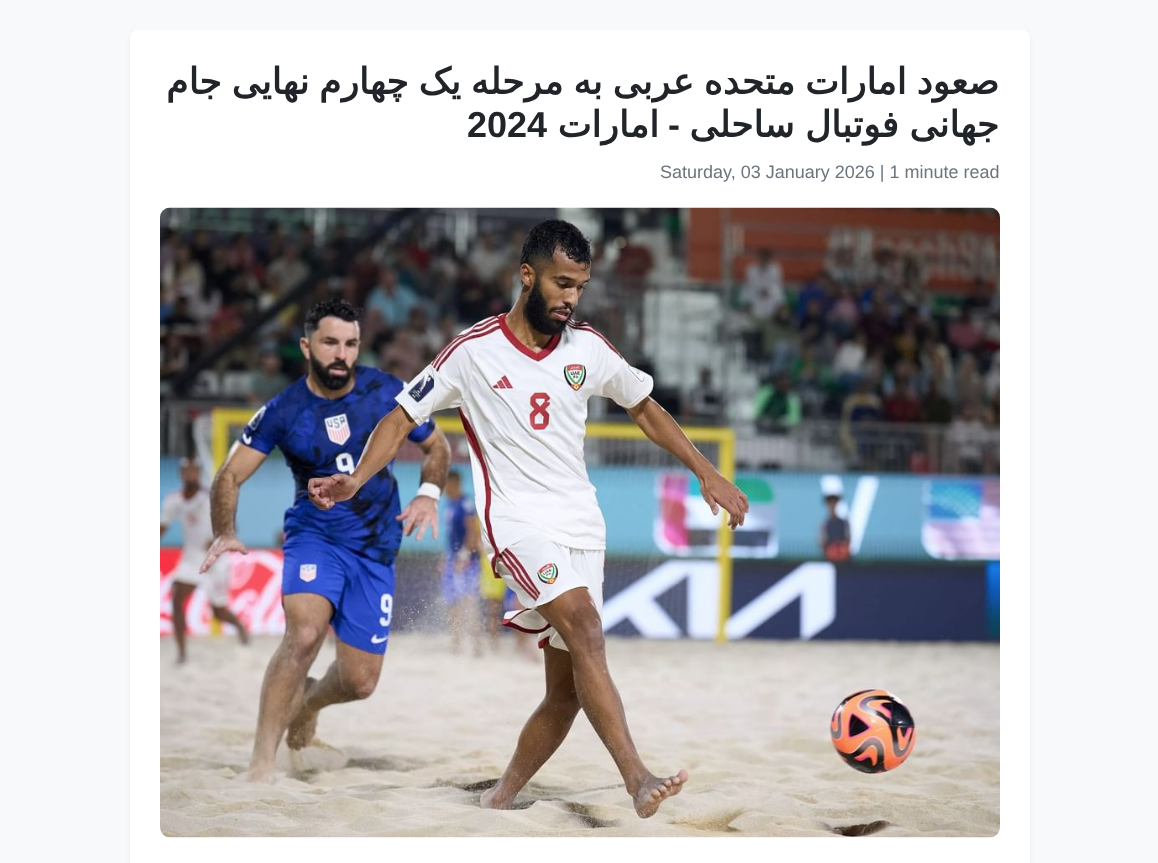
<svg xmlns="http://www.w3.org/2000/svg" width="1158" height="863" viewBox="0 0 1158 863">
  <style>
    .t1 { font: bold 36px DejaVu Sans; direction: rtl; fill: #212529; }
    .t2 { font: bold 36px Liberation Sans; direction: rtl; fill: #212529; }
    .t3 { font: bold 36px Liberation Sans; fill: #212529; }
    .t4 { font: 18px Liberation Sans; fill: #6c757d; }
  </style>
  <rect width="100%" height="100%" fill="#f8f9fa"/>
  <rect x="130" y="33" width="900" height="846" rx="8" fill="#00000012" filter="blur(2.5px)"/>
  <rect x="130" y="30" width="900" height="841" rx="8" fill="#fff"/>
  <text x="999" y="94" word-spacing="-1.5" class="t1">صعود امارات متحده عربی به مرحله یک چهارم نهایی جام</text>
  <text x="999" y="137" word-spacing="-1" class="t1">جهانی فوتبال ساحلی</text>
  <text x="680" y="137" class="t2">-</text>
  <text x="659" y="137" class="t1">امارات</text>
  <text x="467" y="137" class="t3">2024</text>
  <text x="660" y="178" class="t4">Saturday, 03 January 2026 | 1 minute read</text>
  <image x="160" y="207" width="840" height="631" href="images/1.png"/>
</svg>
